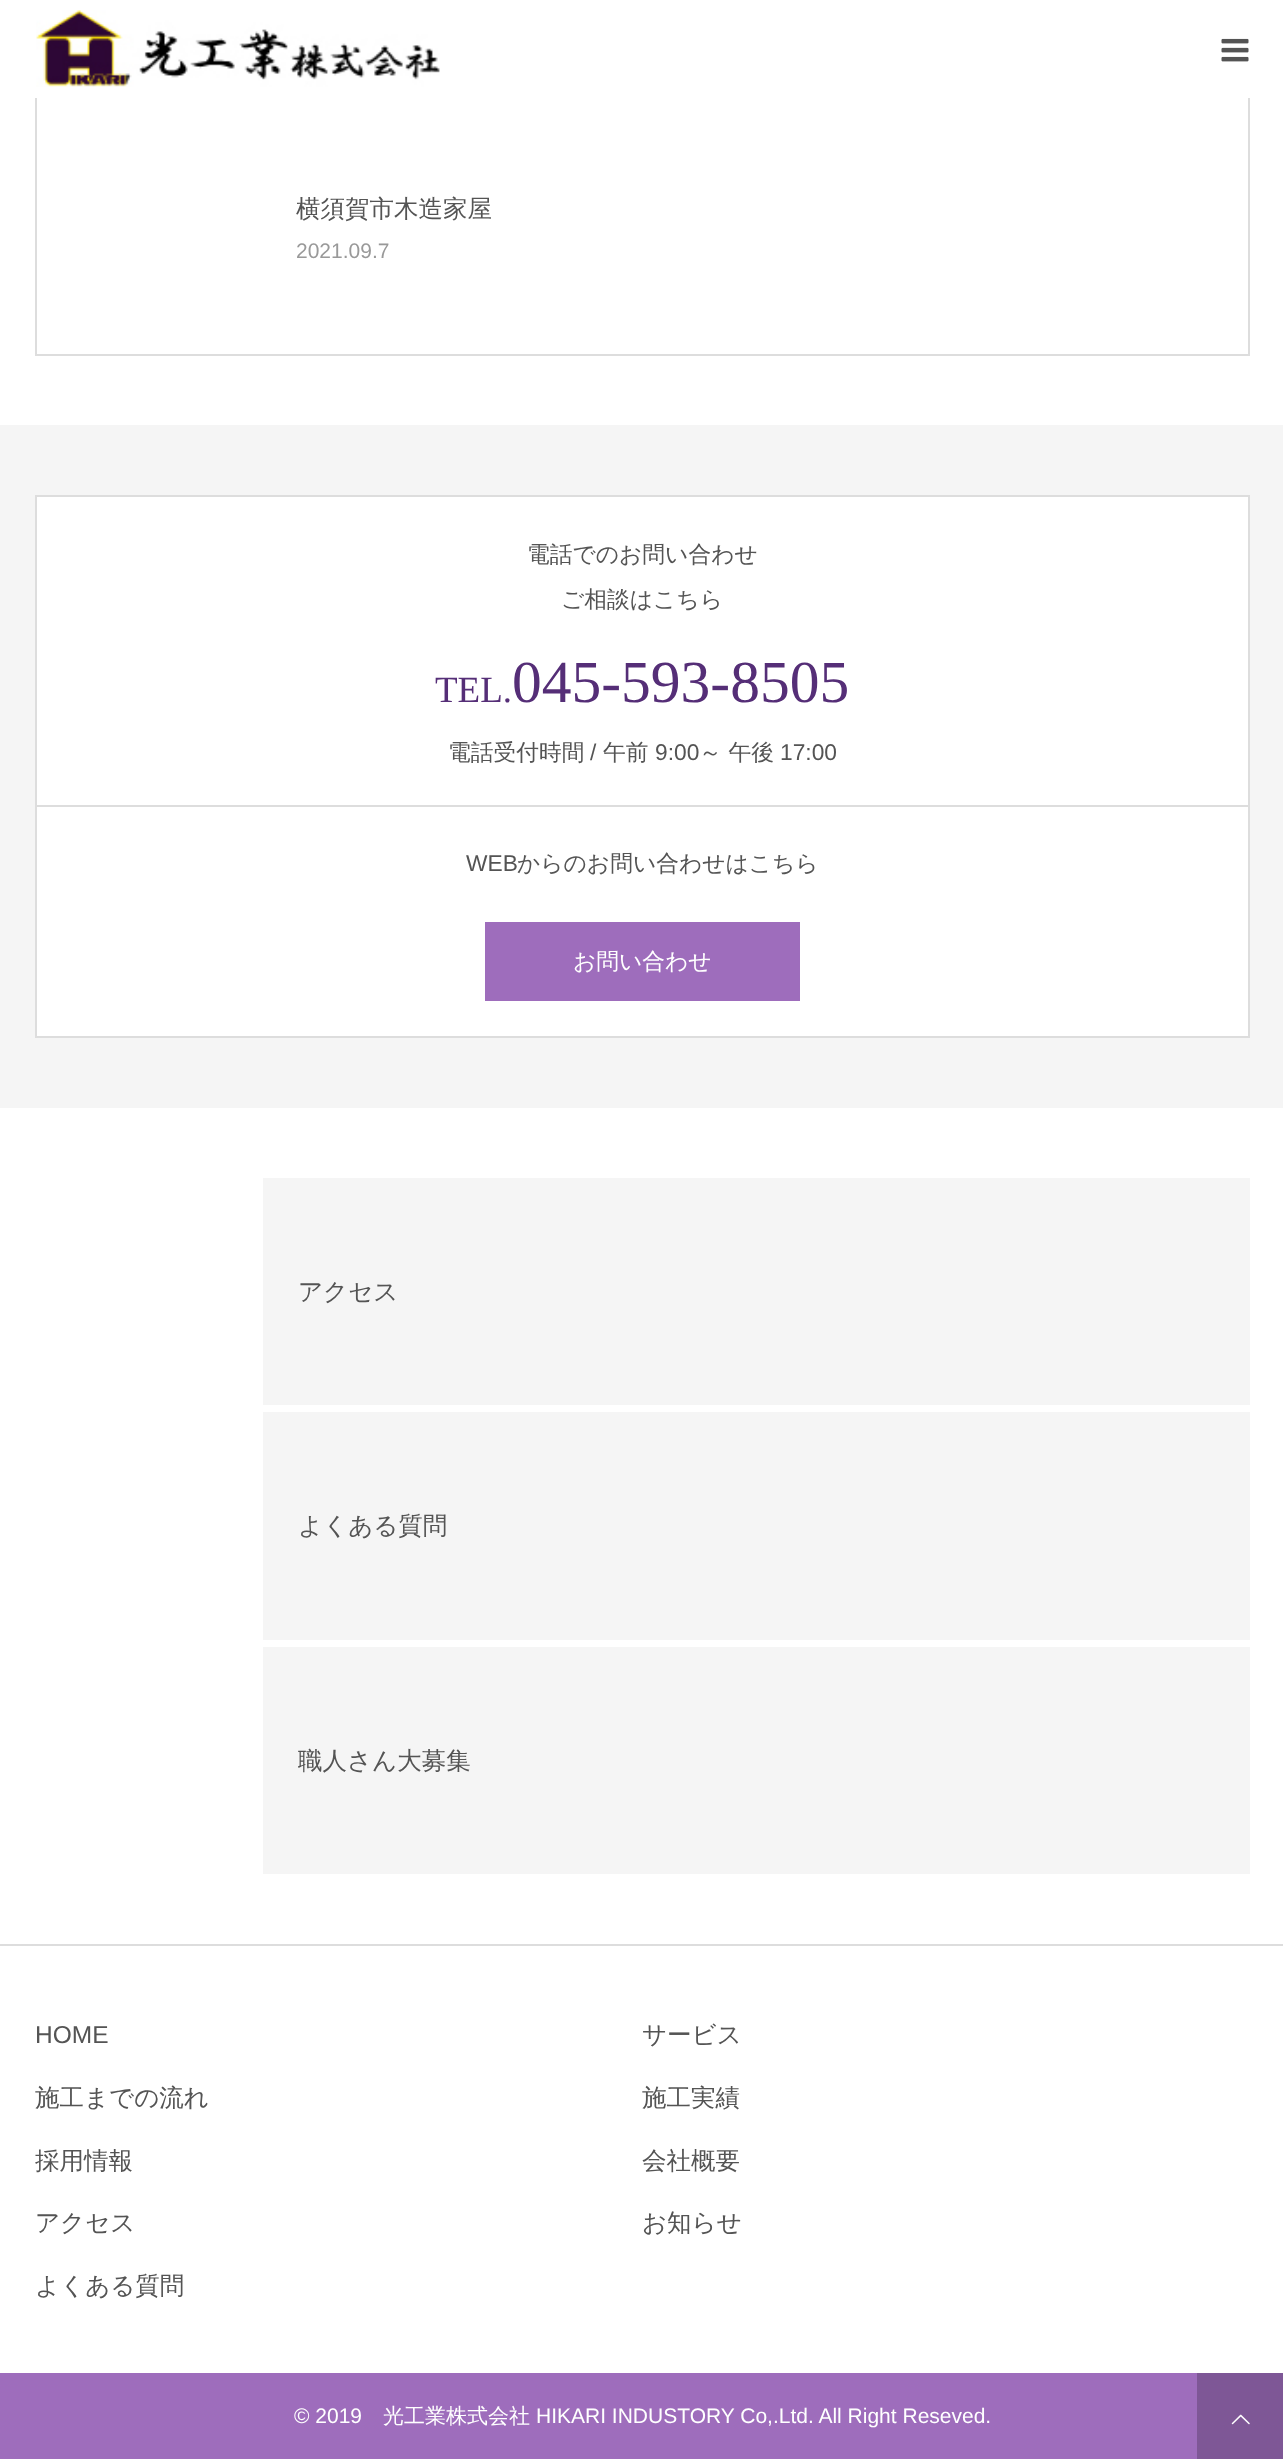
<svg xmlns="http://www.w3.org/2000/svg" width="1283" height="2459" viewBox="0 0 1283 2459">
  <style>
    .t1 { font: 500 24.5px WenQuanYi Zen Hei; fill: #545454; }
    .t2 { font: 21px Liberation Sans; fill: #999; }
    .t3 { font: 500 22.75px WenQuanYi Zen Hei; fill: #545454; }
    .t4 { font: 37px Liberation Serif; fill: #552e77; }
    .t5 { font: 59.5px Liberation Serif; fill: #552e77; }
    .t6 { font: 22.75px Liberation Sans; fill: #545454; }
    .t7 { font: 500 22.75px WenQuanYi Zen Hei; fill: #fff; }
    .t8 { font: 24.5px Liberation Sans; fill: #545454; }
    .t9 { font: 21px Liberation Sans; fill: #fff; }
    .t10 { font: 500 21px WenQuanYi Zen Hei; fill: #fff; }
  </style>
  <rect width="100%" height="100%" fill="#fff"/>
  <image x="36" y="10" width="404" height="77" href="images/1.png"/>
  <image x="1221" y="38" width="28" height="24" href="images/2.png"/>
  <rect x="1248" y="98" width="2" height="257" fill="#ddd"/>
  <rect x="35" y="354" width="1215" height="2" fill="#ddd"/>
  <rect x="35" y="98" width="2" height="257" fill="#ddd"/>
  <text x="296" y="217" class="t1">横須賀市木造家屋</text>
  <text x="296" y="258" class="t2">2021.09.7</text>
  <rect x="0" y="425" width="1283" height="683" fill="#f5f5f5"/>
  <rect x="36" y="496" width="1213" height="310" fill="#fff" stroke="#ddd" stroke-width="2"/>
  <text x="527" y="562" class="t3">電話でのお問い合わせ</text>
  <text x="561" y="607" class="t3">ご相談はこちら</text>
  <text x="435" y="702" class="t4">TEL.</text>
  <text x="512" y="702" class="t5">045-593-8505</text>
  <text x="448" y="760" class="t3">電話受付時間</text>
  <text x="590" y="760" class="t6">/</text>
  <text x="603" y="760" class="t3">午前</text>
  <text x="655" y="760" class="t6">9:00</text>
  <text x="699" y="760" class="t3">～ 午後</text>
  <text x="780" y="760" class="t6">17:00</text>
  <rect x="37" y="807" width="1211" height="229" fill="#fff"/>
  <rect x="1248" y="807" width="2" height="231" fill="#ddd"/>
  <rect x="35" y="1036" width="1215" height="2" fill="#ddd"/>
  <rect x="35" y="807" width="2" height="231" fill="#ddd"/>
  <text x="466" y="871" class="t6">WEB</text>
  <text x="517" y="871" class="t3">からのお問い合わせはこちら</text>
  <rect x="485" y="922" width="315" height="79" fill="#9e6dbc"/>
  <text x="573" y="969" class="t7">お問い合わせ</text>
  <rect x="263" y="1178" width="987" height="227" fill="#f5f5f5"/>
  <text x="298" y="1300" class="t1">アクセス</text>
  <rect x="263" y="1412" width="987" height="228" fill="#f5f5f5"/>
  <text x="298" y="1534" class="t1">よくある質問</text>
  <rect x="263" y="1647" width="987" height="227" fill="#f5f5f5"/>
  <text x="298" y="1769" class="t1">職人さん大募集</text>
  <rect x="0" y="1944" width="1283" height="2" fill="#ddd"/>
  <text x="35" y="2043" class="t8">HOME</text>
  <text x="642" y="2043" class="t1">サービス</text>
  <text x="35" y="2106" class="t1">施工までの流れ</text>
  <text x="642" y="2106" class="t1">施工実績</text>
  <text x="35" y="2169" class="t1">採用情報</text>
  <text x="642" y="2169" class="t1">会社概要</text>
  <text x="35" y="2231" class="t1">アクセス</text>
  <text x="642" y="2231" class="t1">お知らせ</text>
  <text x="35" y="2294" class="t1">よくある質問</text>
  <rect x="0" y="2373" width="1197" height="86" fill="#9e6dbc"/>
  <text x="294" y="2423" class="t9">© 2019</text>
  <text x="383" y="2423" class="t10">光工業株式会社</text>
  <text x="536" y="2423" class="t9">HIKARI INDUSTORY Co,.Ltd. All Right Reseved.</text>
  <rect x="1197" y="2373" width="86" height="86" fill="#7e5796"/>
  <image x="1231" y="2414" width="19" height="11" href="images/3.png"/>
</svg>
